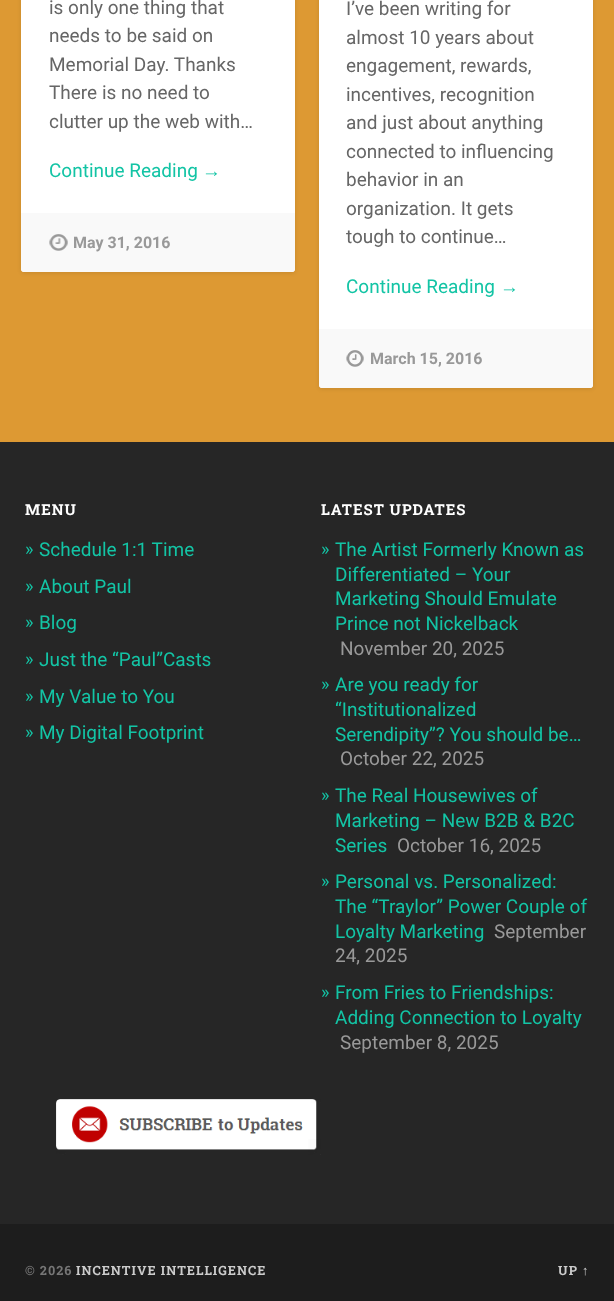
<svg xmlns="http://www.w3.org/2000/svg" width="614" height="1301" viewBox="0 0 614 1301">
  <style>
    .t1 { font: 19px Roboto; fill: #666; }
    .t2 { font: 19px Roboto; fill: #13c4a5; }
    .t3 { font: 19px Liberation Sans; fill: #13c4a5; }
    .t4 { font: bold 16px Roboto; fill: #999; }
    .t5 { font: bold 15px Roboto Slab; letter-spacing: 1px; fill: #fff; }
    .t6 { font: 18px Roboto; fill: #13c4a5; }
    .t7 { font: 19px Roboto; fill: #999; }
    .t8 { font: bold 12.75px Roboto Slab; letter-spacing: 1px; fill: #767676; }
    .t9 { font: bold 12.75px Roboto Slab; letter-spacing: 1px; fill: #ccc; }
    .t10 { font: bold 12.75px Liberation Sans; letter-spacing: 1px; fill: #ccc; }
  </style>
  <rect width="100%" height="100%" fill="#d93"/>
  <rect x="21" y="-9" width="274" height="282" rx="3" fill="#0000001a" filter="blur(2px)"/>
  <rect x="21" y="-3" width="274" height="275" rx="3" fill="#fff"/>
  <text x="49" y="14" class="t1">is only one thing that</text>
  <text x="49" y="42" class="t1">needs to be said on</text>
  <text x="49" y="71" class="t1">Memorial Day. Thanks</text>
  <text x="49" y="99" class="t1">There is no need to</text>
  <text x="49" y="128" class="t1">clutter up the web with…</text>
  <text x="49" y="177" class="t2">Continue Reading</text>
  <text x="202" y="177" class="t3">→</text>
  <path d="M21 213H295V269C295 270.5 293.5 272 292 272H24C22.5 272 21 270.5 21 269Z" fill="#f9f9f9"/>
  <image x="49" y="234" width="19" height="17" href="images/1.png"/>
  <text x="73" y="248" class="t4">May 31, 2016</text>
  <rect x="319" y="-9" width="274" height="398" rx="3" fill="#0000001a" filter="blur(2px)"/>
  <rect x="319" y="-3" width="274" height="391" rx="3" fill="#fff"/>
  <text x="346" y="15" class="t1">I’ve been writing for</text>
  <text x="346" y="44" class="t1">almost 10 years about</text>
  <text x="346" y="72" class="t1">engagement, rewards,</text>
  <text x="346" y="101" class="t1">incentives, recognition</text>
  <text x="346" y="129" class="t1">and just about anything</text>
  <text x="346" y="158" class="t1">connected to influencing</text>
  <text x="346" y="186" class="t1">behavior in an</text>
  <text x="346" y="215" class="t1">organization. It gets</text>
  <text x="346" y="243" class="t1">tough to continue…</text>
  <text x="346" y="293" class="t2">Continue Reading</text>
  <text x="500" y="293" class="t3">→</text>
  <path d="M319 329H593V385C593 386.5 591.5 388 590 388H322C320.5 388 319 386.5 319 385Z" fill="#f9f9f9"/>
  <image x="346" y="350" width="18" height="17" href="images/2.png"/>
  <text x="370" y="364" class="t4">March 15, 2016</text>
  <rect x="0" y="442" width="614" height="782" fill="#262626"/>
  <text x="25" y="515" class="t5">MENU</text>
  <text x="25" y="555" class="t6">»</text>
  <text x="39" y="556" class="t2">Schedule 1:1 Time</text>
  <text x="25" y="592" class="t6">»</text>
  <text x="39" y="593" class="t2">About Paul</text>
  <text x="25" y="628" class="t6">»</text>
  <text x="39" y="629" class="t2">Blog</text>
  <text x="25" y="665" class="t6">»</text>
  <text x="39" y="666" class="t2">Just the “Paul”Casts</text>
  <text x="25" y="702" class="t6">»</text>
  <text x="39" y="703" class="t2">My Value to You</text>
  <text x="25" y="738" class="t6">»</text>
  <text x="39" y="739" class="t2">My Digital Footprint</text>
  <text x="321" y="515" class="t5">LATEST UPDATES</text>
  <text x="321" y="555" class="t6">»</text>
  <text x="335" y="556" class="t2">The Artist Formerly Known as</text>
  <text x="335" y="581" class="t2">Differentiated – Your</text>
  <text x="335" y="605" class="t2">Marketing Should Emulate</text>
  <text x="335" y="630" class="t2">Prince not Nickelback</text>
  <text x="340" y="655" class="t7">November 20, 2025</text>
  <text x="321" y="690" class="t6">»</text>
  <text x="335" y="691" class="t2">Are you ready for</text>
  <text x="335" y="716" class="t2">“Institutionalized</text>
  <text x="335" y="741" class="t2">Serendipity”? You should be…</text>
  <text x="340" y="765" class="t7">October 22, 2025</text>
  <text x="321" y="801" class="t6">»</text>
  <text x="335" y="802" class="t2">The Real Housewives of</text>
  <text x="335" y="827" class="t2">Marketing – New B2B &amp; B2C</text>
  <text x="335" y="852" class="t2">Series</text>
  <text x="397" y="852" class="t7">October 16, 2025</text>
  <text x="321" y="887" class="t6">»</text>
  <text x="335" y="888" class="t2">Personal vs. Personalized:</text>
  <text x="335" y="913" class="t2">The “Traylor” Power Couple of</text>
  <text x="335" y="938" class="t2">Loyalty Marketing</text>
  <text x="494" y="938" class="t7">September</text>
  <text x="335" y="962" class="t7">24, 2025</text>
  <text x="321" y="998" class="t6">»</text>
  <text x="335" y="999" class="t2">From Fries to Friendships:</text>
  <text x="335" y="1024" class="t2">Adding Connection to Loyalty</text>
  <text x="340" y="1049" class="t7">September 8, 2025</text>
  <image x="56" y="1099" width="265" height="56" href="images/3.png"/>
  <rect x="0" y="1224" width="614" height="77" fill="#1d1d1d"/>
  <text x="25" y="1275" class="t8">© 2026</text>
  <text x="76" y="1275" class="t9">INCENTIVE INTELLIGENCE</text>
  <text x="558" y="1275" class="t9">UP</text>
  <text x="582" y="1275" class="t10">↑</text>
</svg>
